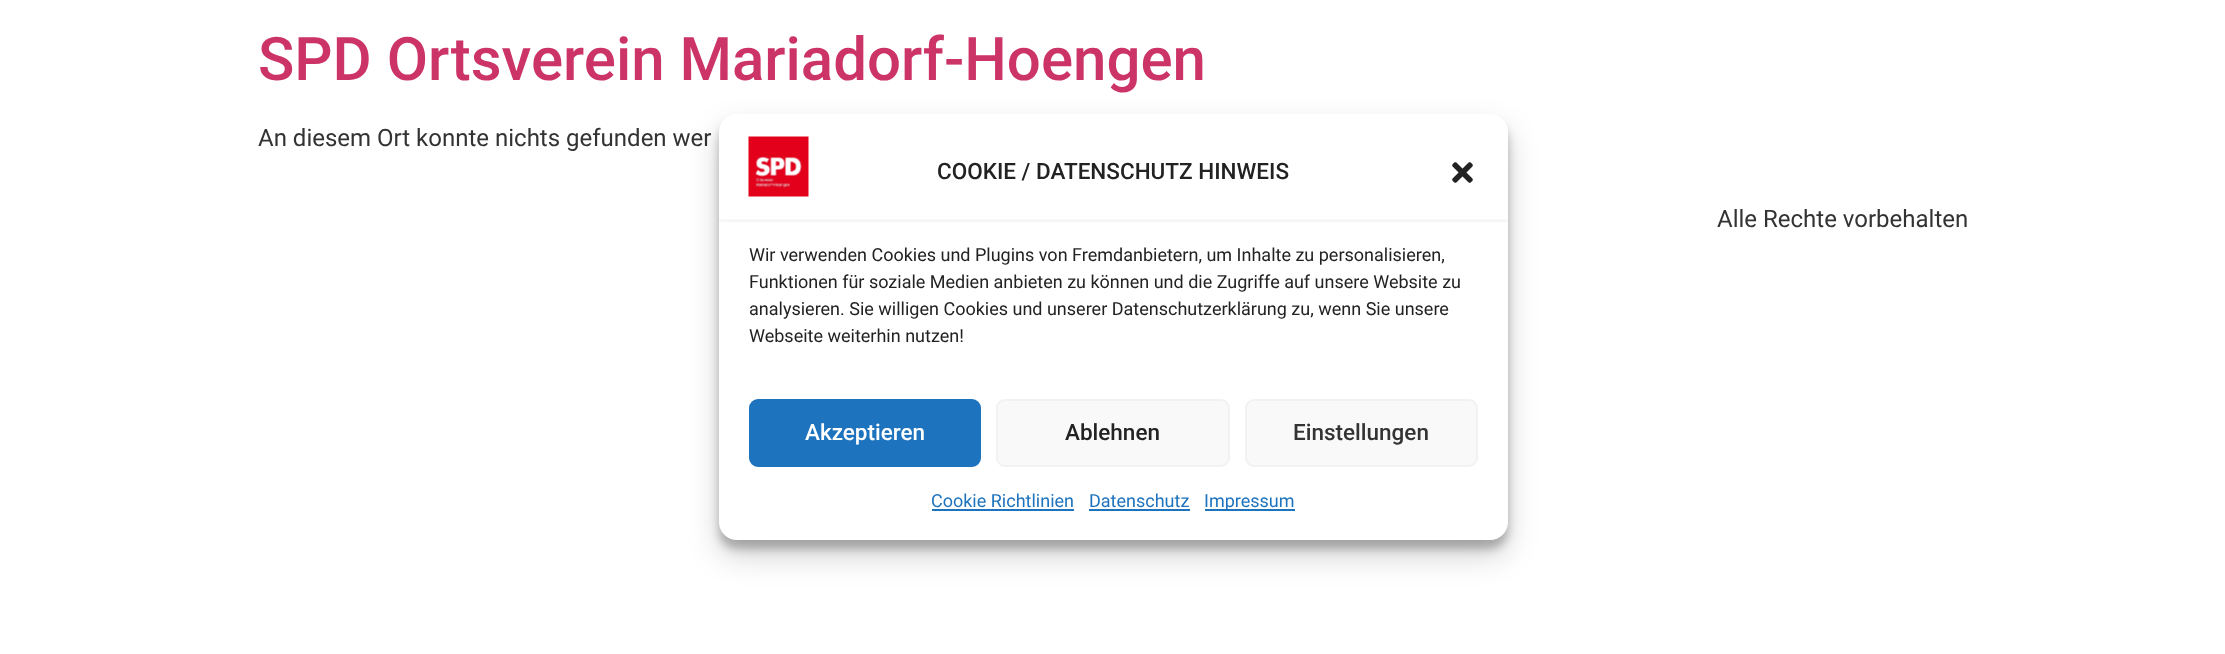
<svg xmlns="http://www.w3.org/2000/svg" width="2225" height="654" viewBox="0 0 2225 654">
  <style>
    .t1 { font: 500 60px Roboto; fill: #c36; }
    .t2 { font: 24px Roboto; fill: #333; }
    .t3 { font: 500 22.5px Roboto; fill: #222; }
    .t4 { font: 18px Roboto; fill: #222; }
    .t5 { font: 500 22.5px Roboto; fill: #fff; }
    .t6 { font: 500 22.5px Roboto; fill: #333; }
    .t7 { font: 18px Roboto; fill: #1e73be; }
  </style>
  <defs>
    <clipPath id="clip1"><rect x="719" y="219" width="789" height="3"/></clipPath>
  </defs>
  <rect width="100%" height="100%" fill="#fff"/>
  <text x="258" y="80" class="t1">SPD Ortsverein Mariadorf-Hoengen</text>
  <text x="258" y="146" class="t2">An diesem Ort konnte nichts gefunden wer</text>
  <rect x="719" y="123" width="789" height="426" rx="18" fill="#0000003b" filter="blur(4.5px)"/>
  <rect x="719" y="129" width="789" height="426" rx="18" fill="#00000030" filter="blur(15px)"/>
  <rect x="719" y="114" width="789" height="426" rx="18" fill="#fff"/>
  <image x="748" y="136" width="61" height="61" href="images/1.png"/>
  <text x="937" y="179" class="t3">COOKIE / DATENSCHUTZ HINWEIS</text>
  <image x="1452" y="162" width="21" height="21" href="images/2.png"/>
  <g clip-path="url(#clip1)">
    <rect x="719" y="219" width="789" height="5" fill="#0000000d" filter="blur(2px)"/>
  </g>
  <text x="749" y="261" class="t4">Wir verwenden Cookies und Plugins von Fremdanbietern, um Inhalte zu personalisieren,</text>
  <text x="749" y="288" class="t4">Funktionen für soziale Medien anbieten zu können und die Zugriffe auf unsere Website zu</text>
  <text x="749" y="315" class="t4">analysieren. Sie willigen Cookies und unserer Datenschutzerklärung zu, wenn Sie unsere</text>
  <text x="749" y="342" class="t4">Webseite weiterhin nutzen!</text>
  <rect x="750" y="400" width="230" height="66" rx="8" fill="#1e73be" stroke="#1e73be" stroke-width="2"/>
  <text x="805" y="440" class="t5">Akzeptieren</text>
  <rect x="997" y="400" width="232" height="66" rx="8" fill="#f9f9f9" stroke="#f2f2f2" stroke-width="2"/>
  <text x="1065" y="440" class="t3">Ablehnen</text>
  <rect x="1246" y="400" width="231" height="66" rx="8" fill="#f9f9f9" stroke="#f2f2f2" stroke-width="2"/>
  <text x="1293" y="440" class="t6">Einstellungen</text>
  <text x="931" y="507" class="t7">Cookie Richtlinien</text>
  <rect x="932" y="509" width="142" height="2" fill="#1e73be"/>
  <text x="1089" y="507" class="t7">Datenschutz</text>
  <rect x="1089" y="509" width="101" height="2" fill="#1e73be"/>
  <rect x="1205" y="509" width="90" height="2" fill="#1e73be"/>
  <text x="1204" y="507" class="t7">Impressum</text>
  <text x="1717" y="227" class="t2">Alle Rechte vorbehalten</text>
</svg>
